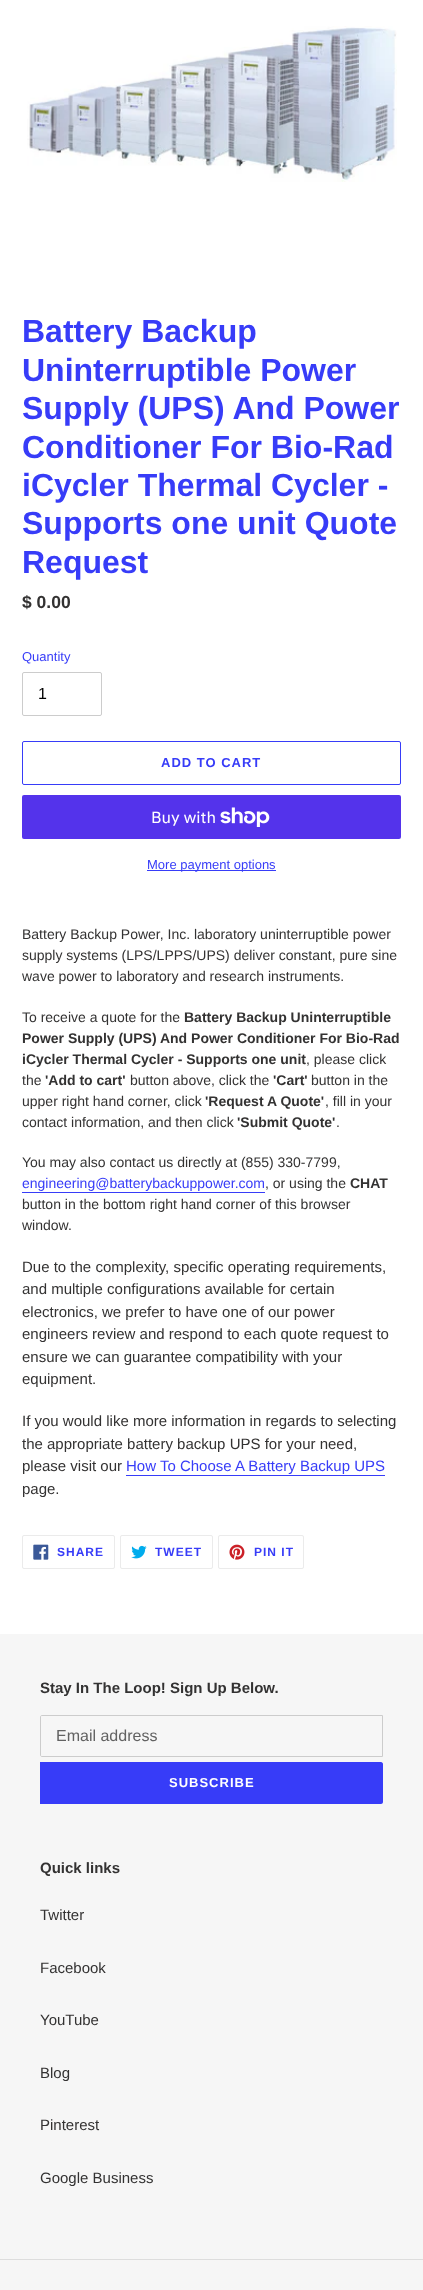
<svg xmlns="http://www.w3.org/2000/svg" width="423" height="2290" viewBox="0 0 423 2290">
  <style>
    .t1 { font: bold 32px Liberation Sans; fill: #373cf8; }
    .t2 { font: bold 17.5px Liberation Sans; fill: #333232; }
    .t3 { font: 13px Liberation Sans; fill: #373cf8; }
    .t4 { font: 16px Liberation Sans; fill: #000; }
    .t5 { font: bold 13px Liberation Sans; letter-spacing: 1px; fill: #373cf8; }
    .t6 { font: 16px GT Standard; fill: #fff; }
    .t7 { font: 14px Liberation Sans; fill: #333232; }
    .t8 { font: bold 14px Liberation Sans; fill: #333232; }
    .t9 { font: 14px Liberation Sans; fill: #373cf8; }
    .t10 { font: 15px Liberation Sans; fill: #333232; }
    .t11 { font: 15px Liberation Sans; fill: #373cf8; }
    .t12 { font: bold 12px Liberation Sans; letter-spacing: 1px; fill: #373cf8; }
    .t13 { font: bold 15px Liberation Sans; fill: #333232; }
    .t14 { font: 16px Liberation Sans; fill: #626262; }
    .t15 { font: bold 13px Liberation Sans; letter-spacing: 1px; fill: #fff; }
  </style>
  <rect width="100%" height="100%" fill="#fff"/>
  <image x="27" y="26" width="370" height="156" href="images/1.png"/>
  <text x="22" y="342" class="t1">Battery Backup</text>
  <text x="22" y="381" class="t1">Uninterruptible Power</text>
  <text x="22" y="419" class="t1">Supply (UPS) And Power</text>
  <text x="22" y="458" class="t1">Conditioner For Bio-Rad</text>
  <text x="22" y="496" class="t1">iCycler Thermal Cycler -</text>
  <text x="22" y="534" class="t1">Supports one unit Quote</text>
  <text x="22" y="573" class="t1">Request</text>
  <text x="22" y="608" class="t2">$ 0.00</text>
  <text x="22" y="661" class="t3">Quantity</text>
  <rect x="22.5" y="672.5" width="79" height="43" rx="1.5" fill="none" stroke="#ccc"/>
  <text x="38" y="699" class="t4">1</text>
  <rect x="22.5" y="741.5" width="378" height="43" rx="1.5" fill="none" stroke="#373cf8"/>
  <text x="161" y="767" class="t5">ADD TO CART</text>
  <rect x="22" y="795" width="379" height="44" rx="2" fill="#5433eb"/>
  <text x="151" y="823" class="t6">Buy with</text>
  <image x="220" y="807" width="50" height="20" href="images/2.png"/>
  <rect x="147" y="870" width="129" height="1" fill="#373cf8"/>
  <text x="147" y="869" class="t3">More payment options</text>
  <text x="22" y="939" class="t7">Battery Backup Power, Inc. laboratory uninterruptible power</text>
  <text x="22" y="960" class="t7">supply systems (LPS/LPPS/UPS) deliver constant, pure sine</text>
  <text x="22" y="981" class="t7">wave power to laboratory and research instruments.</text>
  <text x="22" y="1022" class="t7">To receive a quote for the</text>
  <text x="184" y="1022" class="t8">Battery Backup Uninterruptible</text>
  <text x="22" y="1043" class="t8">Power Supply (UPS) And Power Conditioner For Bio-Rad</text>
  <text x="22" y="1064" class="t8">iCycler Thermal Cycler - Supports one unit</text>
  <text x="306" y="1064" class="t7">, please click</text>
  <text x="22" y="1085" class="t7">the</text>
  <text x="45" y="1085" class="t8">'Add to cart'</text>
  <text x="130" y="1085" class="t7">button above, click the</text>
  <text x="273" y="1085" class="t8">'Cart'</text>
  <text x="311" y="1085" class="t7">button in the</text>
  <text x="22" y="1106" class="t7">upper right hand corner, click</text>
  <text x="205" y="1106" class="t8">'Request A Quote'</text>
  <text x="325" y="1106" class="t7">, fill in your</text>
  <text x="22" y="1127" class="t7">contact information, and then click</text>
  <text x="237" y="1127" class="t8">'Submit Quote'</text>
  <text x="336" y="1127" class="t7">.</text>
  <text x="22" y="1167" class="t7">You may also contact us directly at (855) 330-7799,</text>
  <text x="22" y="1188" class="t9">engineering@batterybackuppower.com</text>
  <rect x="22" y="1192" width="243" height="1" fill="#373cf8"/>
  <text x="265" y="1188" class="t7">, or using the</text>
  <text x="350" y="1188" class="t8">CHAT</text>
  <text x="22" y="1209" class="t7">button in the bottom right hand corner of this browser</text>
  <text x="22" y="1230" class="t7">window.</text>
  <text x="22" y="1272" class="t10">Due to the complexity, specific operating requirements,</text>
  <text x="22" y="1294" class="t10">and multiple configurations available for certain</text>
  <text x="22" y="1317" class="t10">electronics, we prefer to have one of our power</text>
  <text x="22" y="1339" class="t10">engineers review and respond to each quote request to</text>
  <text x="22" y="1362" class="t10">ensure we can guarantee compatibility with your</text>
  <text x="22" y="1384" class="t10">equipment.</text>
  <text x="22" y="1426" class="t10">If you would like more information in regards to selecting</text>
  <text x="22" y="1449" class="t10">the appropriate battery backup UPS for your need,</text>
  <text x="22" y="1471" class="t10">please visit our</text>
  <text x="126" y="1471" class="t11">How To Choose A Battery Backup UPS</text>
  <rect x="126" y="1475" width="259" height="1" fill="#373cf8"/>
  <text x="22" y="1494" class="t10">page.</text>
  <rect x="22.5" y="1535.5" width="92" height="33" rx="1.5" fill="none" stroke="#ebebeb"/>
  <image x="33" y="1544" width="16" height="16" href="images/3.png"/>
  <text x="57" y="1556" class="t12">SHARE</text>
  <rect x="120.5" y="1535.5" width="92" height="33" rx="1.5" fill="none" stroke="#ebebeb"/>
  <image x="131" y="1545" width="16" height="14" href="images/4.png"/>
  <text x="155" y="1556" class="t12">TWEET</text>
  <rect x="218.5" y="1535.5" width="85" height="33" rx="1.5" fill="none" stroke="#ebebeb"/>
  <image x="229" y="1544" width="16" height="16" href="images/5.png"/>
  <text x="254" y="1556" class="t12">PIN IT</text>
  <rect x="0" y="1634" width="423" height="656" fill="#f6f6f6"/>
  <text x="40" y="1693" class="t13">Stay In The Loop! Sign Up Below.</text>
  <path d="M42 1715.5H382.5V1756.5H42C41 1756.5 40.5 1756 40.5 1755V1717C40.5 1716 41 1715.5 42 1715.5Z" fill="none" stroke="#ccc"/>
  <text x="56" y="1741" class="t14">Email address</text>
  <path d="M40 1762H381C382 1762 383 1763 383 1764V1802C383 1803 382 1804 381 1804H40Z" fill="#373cf8"/>
  <text x="169" y="1787" class="t15">SUBSCRIBE</text>
  <text x="40" y="1873" class="t13">Quick links</text>
  <text x="40" y="1920" class="t10">Twitter</text>
  <text x="40" y="1973" class="t10">Facebook</text>
  <text x="40" y="2025" class="t10">YouTube</text>
  <text x="40" y="2078" class="t10">Blog</text>
  <text x="40" y="2130" class="t10">Pinterest</text>
  <text x="40" y="2183" class="t10">Google Business</text>
  <rect x="0" y="2259" width="423" height="1" fill="#ddd"/>
</svg>
